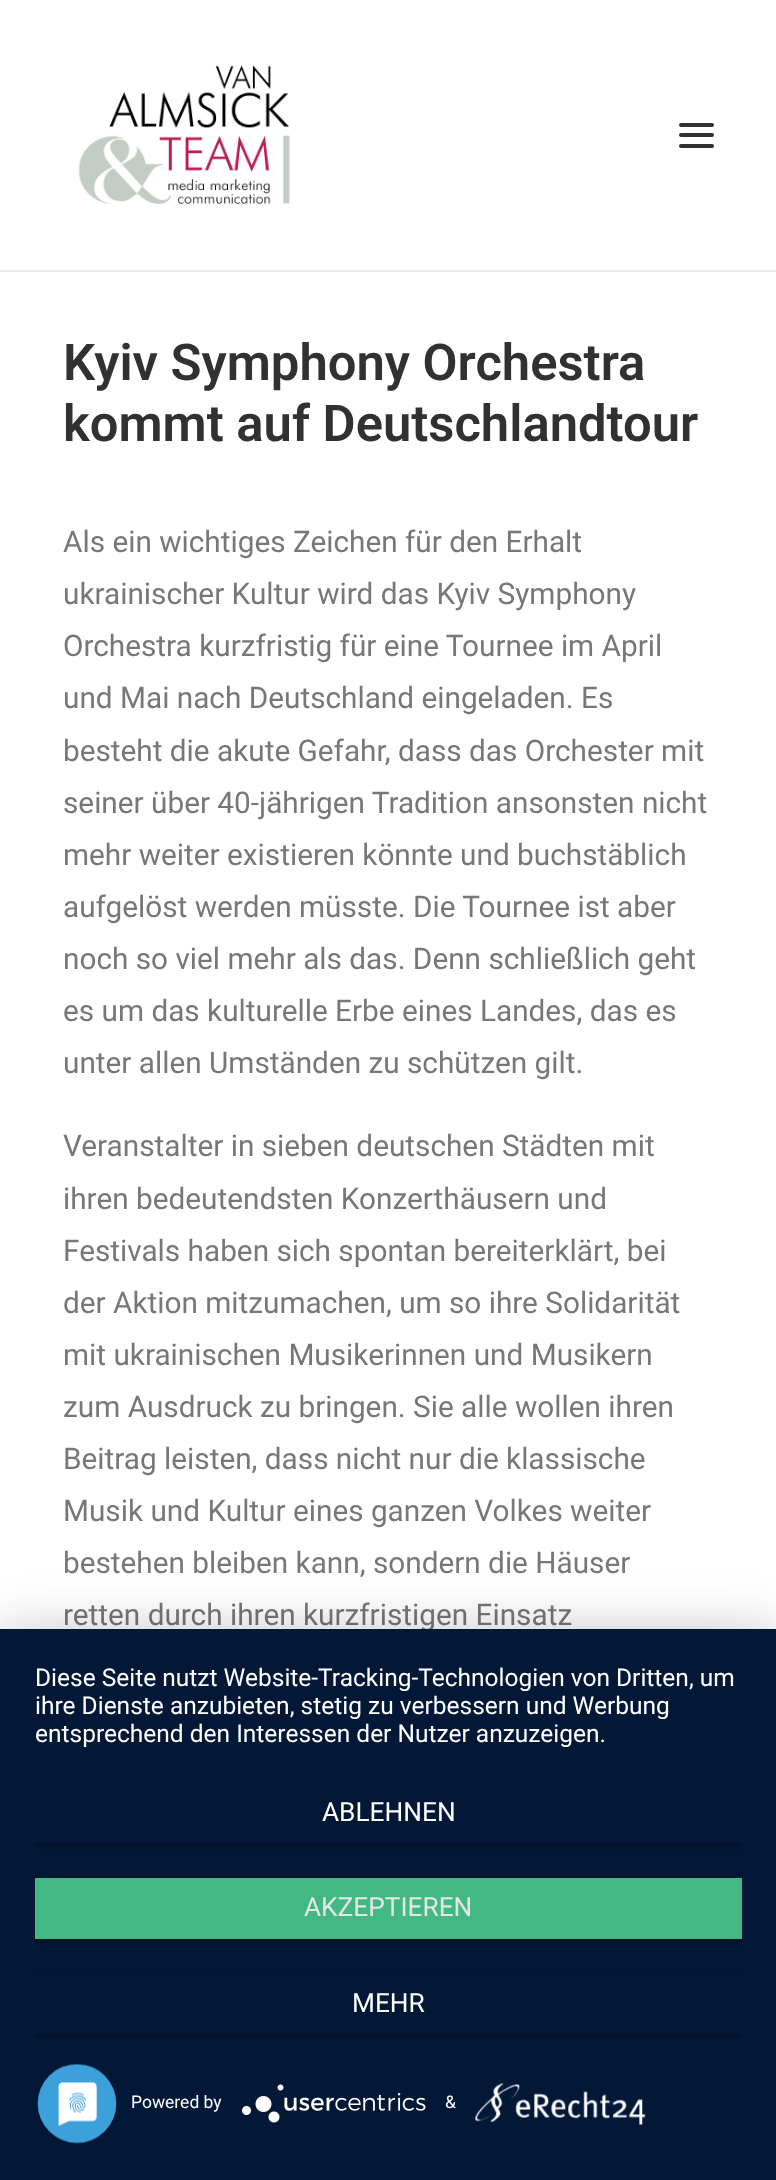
<svg xmlns="http://www.w3.org/2000/svg" width="776" height="2180" viewBox="0 0 776 2180">
  <style>
    .t1 { font: 600 50.75px Roboto; fill: #303133; }
    .t2 { font: 29.75px Roboto; fill: #777; }
    .t3 { font: 24.5px Roboto; fill: #fff; }
    .t4 { font: 26.25px Roboto; fill: #fff; }
    .t5 { font: 26.25px Roboto; fill: #e6e6e6; }
    .t6 { font: 17.5px Roboto; fill: #fff; }
  </style>
  <defs>
    <clipPath id="clip1"><rect x="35" y="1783" width="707" height="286"/></clipPath>
  </defs>
  <rect width="100%" height="100%" fill="#fff"/>
  <rect x="0" y="270" width="776" height="2" fill="#eaeaea"/>
  <image x="78" y="65" width="212" height="139" href="images/1.png"/>
  <rect x="679" y="133" width="35" height="4" rx="2" fill="#303133"/>
  <rect x="679" y="123" width="35" height="4" rx="2" fill="#303133"/>
  <rect x="679" y="144" width="35" height="4" rx="2" fill="#303133"/>
  <text x="63" y="380" class="t1">Kyiv Symphony Orchestra</text>
  <text x="63" y="441" class="t1">kommt auf Deutschlandtour</text>
  <text x="63" y="552" class="t2">Als ein wichtiges Zeichen für den Erhalt</text>
  <text x="63" y="604" class="t2">ukrainischer Kultur wird das Kyiv Symphony</text>
  <text x="63" y="656" class="t2">Orchestra kurzfristig für eine Tournee im April</text>
  <text x="63" y="708" class="t2">und Mai nach Deutschland eingeladen. Es</text>
  <text x="63" y="761" class="t2">besteht die akute Gefahr, dass das Orchester mit</text>
  <text x="63" y="813" class="t2">seiner über 40-jährigen Tradition ansonsten nicht</text>
  <text x="63" y="865" class="t2">mehr weiter existieren könnte und buchstäblich</text>
  <text x="63" y="917" class="t2">aufgelöst werden müsste. Die Tournee ist aber</text>
  <text x="63" y="969" class="t2">noch so viel mehr als das. Denn schließlich geht</text>
  <text x="63" y="1021" class="t2">es um das kulturelle Erbe eines Landes, das es</text>
  <text x="63" y="1073" class="t2">unter allen Umständen zu schützen gilt.</text>
  <text x="63" y="1156" class="t2">Veranstalter in sieben deutschen Städten mit</text>
  <text x="63" y="1209" class="t2">ihren bedeutendsten Konzerthäusern und</text>
  <text x="63" y="1261" class="t2">Festivals haben sich spontan bereiterklärt, bei</text>
  <text x="63" y="1313" class="t2">der Aktion mitzumachen, um so ihre Solidarität</text>
  <text x="63" y="1365" class="t2">mit ukrainischen Musikerinnen und Musikern</text>
  <text x="63" y="1417" class="t2">zum Ausdruck zu bringen. Sie alle wollen ihren</text>
  <text x="63" y="1469" class="t2">Beitrag leisten, dass nicht nur die klassische</text>
  <text x="63" y="1521" class="t2">Musik und Kultur eines ganzen Volkes weiter</text>
  <text x="63" y="1573" class="t2">bestehen bleiben kann, sondern die Häuser</text>
  <text x="63" y="1625" class="t2">retten durch ihren kurzfristigen Einsatz</text>
  <rect x="0" y="1640" width="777" height="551" fill="#0000004d" filter="blur(31.5px)"/>
  <rect x="0" y="1629" width="776" height="551" fill="#021836"/>
  <text x="35" y="1686" class="t3">Diese Seite nutzt Website-Tracking-Technologien von Dritten, um</text>
  <text x="35" y="1714" class="t3">ihre Dienste anzubieten, stetig zu verbessern und Werbung</text>
  <text x="35" y="1742" class="t3">entsprechend den Interessen der Nutzer anzuzeigen.</text>
  <g clip-path="url(#clip1)">
    <rect x="35" y="1785" width="707" height="60" fill="#00000066" filter="blur(3.5px)"/>
  </g>
  <rect x="35" y="1783" width="707" height="60" fill="#021836"/>
  <text x="322" y="1821" class="t4">ABLEHNEN</text>
  <g clip-path="url(#clip1)">
    <rect x="35" y="1880" width="707" height="61" fill="#00000066" filter="blur(3.5px)"/>
  </g>
  <rect x="35" y="1878" width="707" height="61" fill="#42b983"/>
  <text x="304" y="1916" class="t5">AKZEPTIEREN</text>
  <g clip-path="url(#clip1)">
    <rect x="35" y="1976" width="707" height="59" fill="#00000066" filter="blur(3.5px)"/>
  </g>
  <rect x="35" y="1974" width="707" height="60" fill="#021836"/>
  <text x="352" y="2012" class="t4">MEHR</text>
  <text x="131" y="2108" class="t6">Powered by</text>
  <image x="242" y="2084" width="184" height="39" href="images/2.png"/>
  <text x="445" y="2108" class="t6">&amp;</text>
  <image x="475" y="2083" width="171" height="42" href="images/3.png"/>
  <image x="36" y="2063" width="81" height="81" href="images/4.png"/>
</svg>
